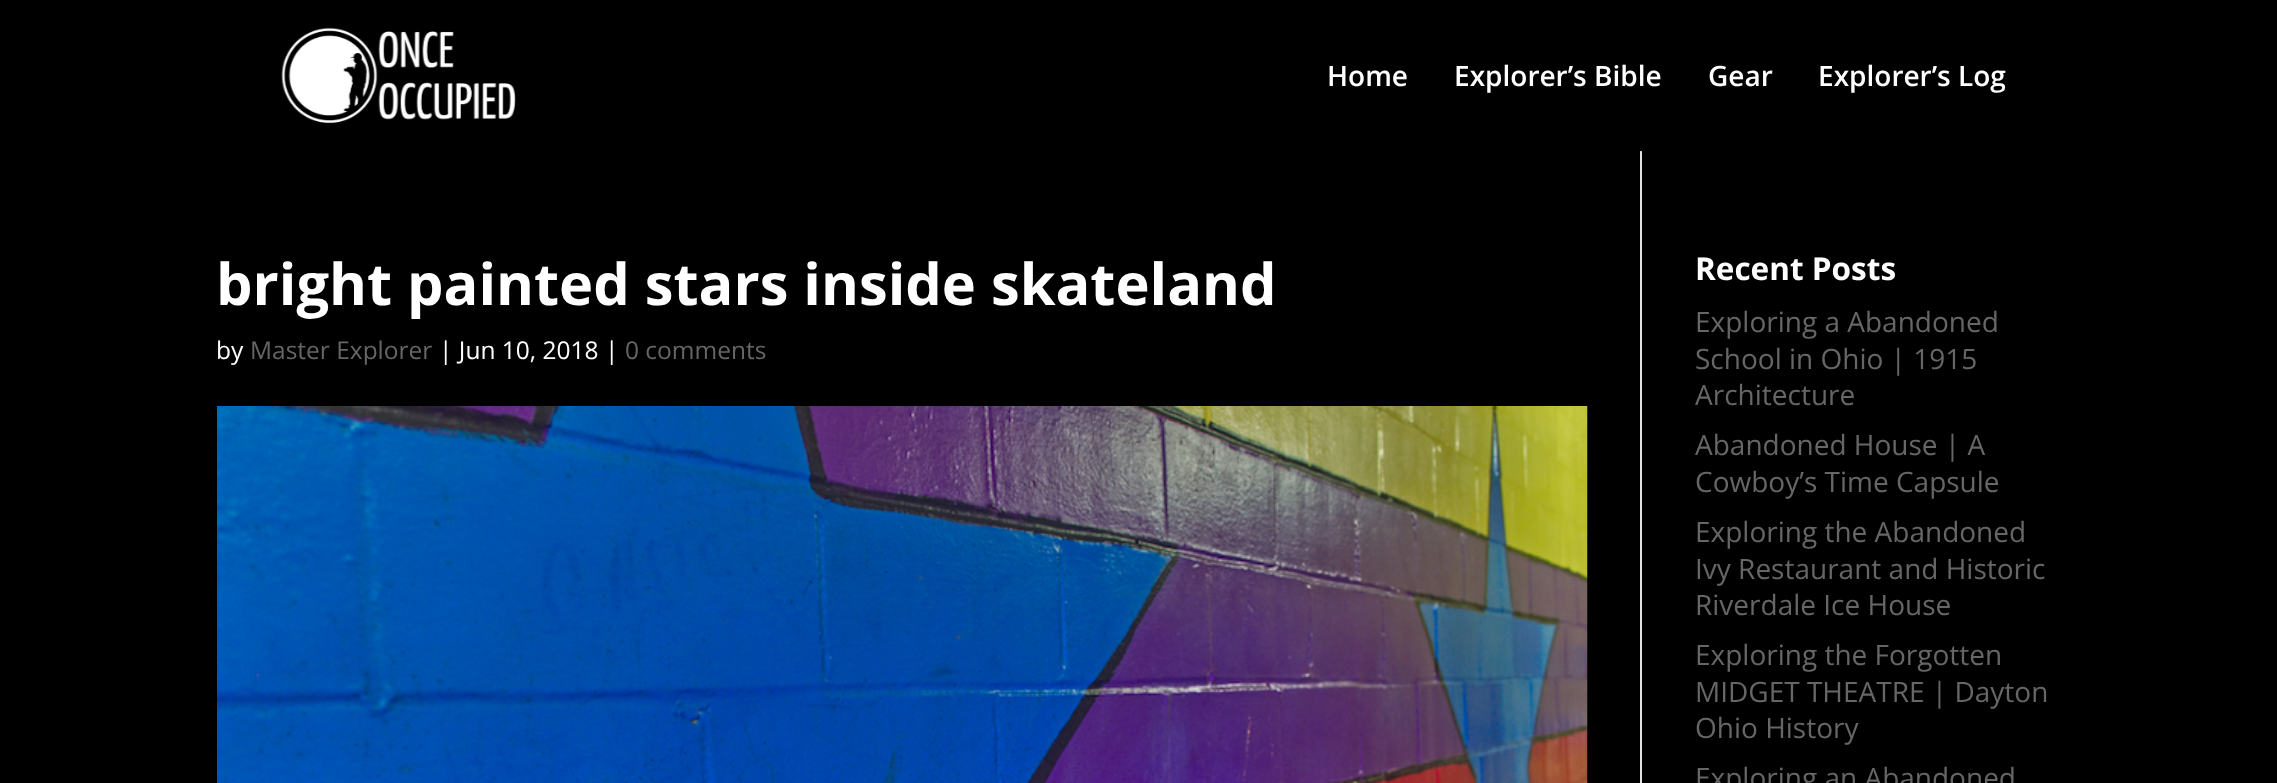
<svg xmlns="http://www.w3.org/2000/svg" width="2277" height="783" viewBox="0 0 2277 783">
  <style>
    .t1 { font: 600 28px Open Sans; fill: #fff; }
    .t2 { font: bold 57.75px Open Sans; fill: #fff; }
    .t3 { font: 24.5px Open Sans; fill: #fff; }
    .t4 { font: 24.5px Open Sans; fill: #666; }
    .t5 { font: bold 31.5px Open Sans; fill: #fff; }
    .t6 { font: 28px Open Sans; fill: #666; }
  </style>
  <rect width="100%" height="100%" fill="#000"/>
  <rect x="1640" y="151" width="2" height="632" fill="#e2e2e2"/>
  <path d="M114 150V152H2165V2V150Z" fill="#0000001a"/>
  <image x="281" y="27" width="235" height="97" href="images/1.png"/>
  <text x="1327" y="86" class="t1">Home</text>
  <text x="1454" y="86" class="t1">Explorer’s Bible</text>
  <text x="1708" y="86" class="t1">Gear</text>
  <text x="1818" y="86" class="t1">Explorer’s Log</text>
  <text x="216" y="305" class="t2">bright painted stars inside skateland</text>
  <text x="216" y="359" class="t3">by</text>
  <text x="250" y="359" class="t4">Master Explorer</text>
  <text x="439" y="359" class="t3">| Jun 10, 2018 |</text>
  <text x="625" y="359" class="t4">0 comments</text>
  <image x="217" y="406" width="1371" height="377" href="images/2.png"/>
  <text x="1695" y="280" class="t5">Recent Posts</text>
  <text x="1695" y="332" class="t6">Exploring a Abandoned</text>
  <text x="1695" y="369" class="t6">School in Ohio | 1915</text>
  <text x="1695" y="405" class="t6">Architecture</text>
  <text x="1695" y="455" class="t6">Abandoned House | A</text>
  <text x="1695" y="492" class="t6">Cowboy’s Time Capsule</text>
  <text x="1695" y="542" class="t6">Exploring the Abandoned</text>
  <text x="1695" y="579" class="t6">Ivy Restaurant and Historic</text>
  <text x="1695" y="615" class="t6">Riverdale Ice House</text>
  <text x="1695" y="665" class="t6">Exploring the Forgotten</text>
  <text x="1695" y="702" class="t6">MIDGET THEATRE | Dayton</text>
  <text x="1695" y="738" class="t6">Ohio History</text>
  <text x="1695" y="788" class="t6">Exploring an Abandoned</text>
</svg>
